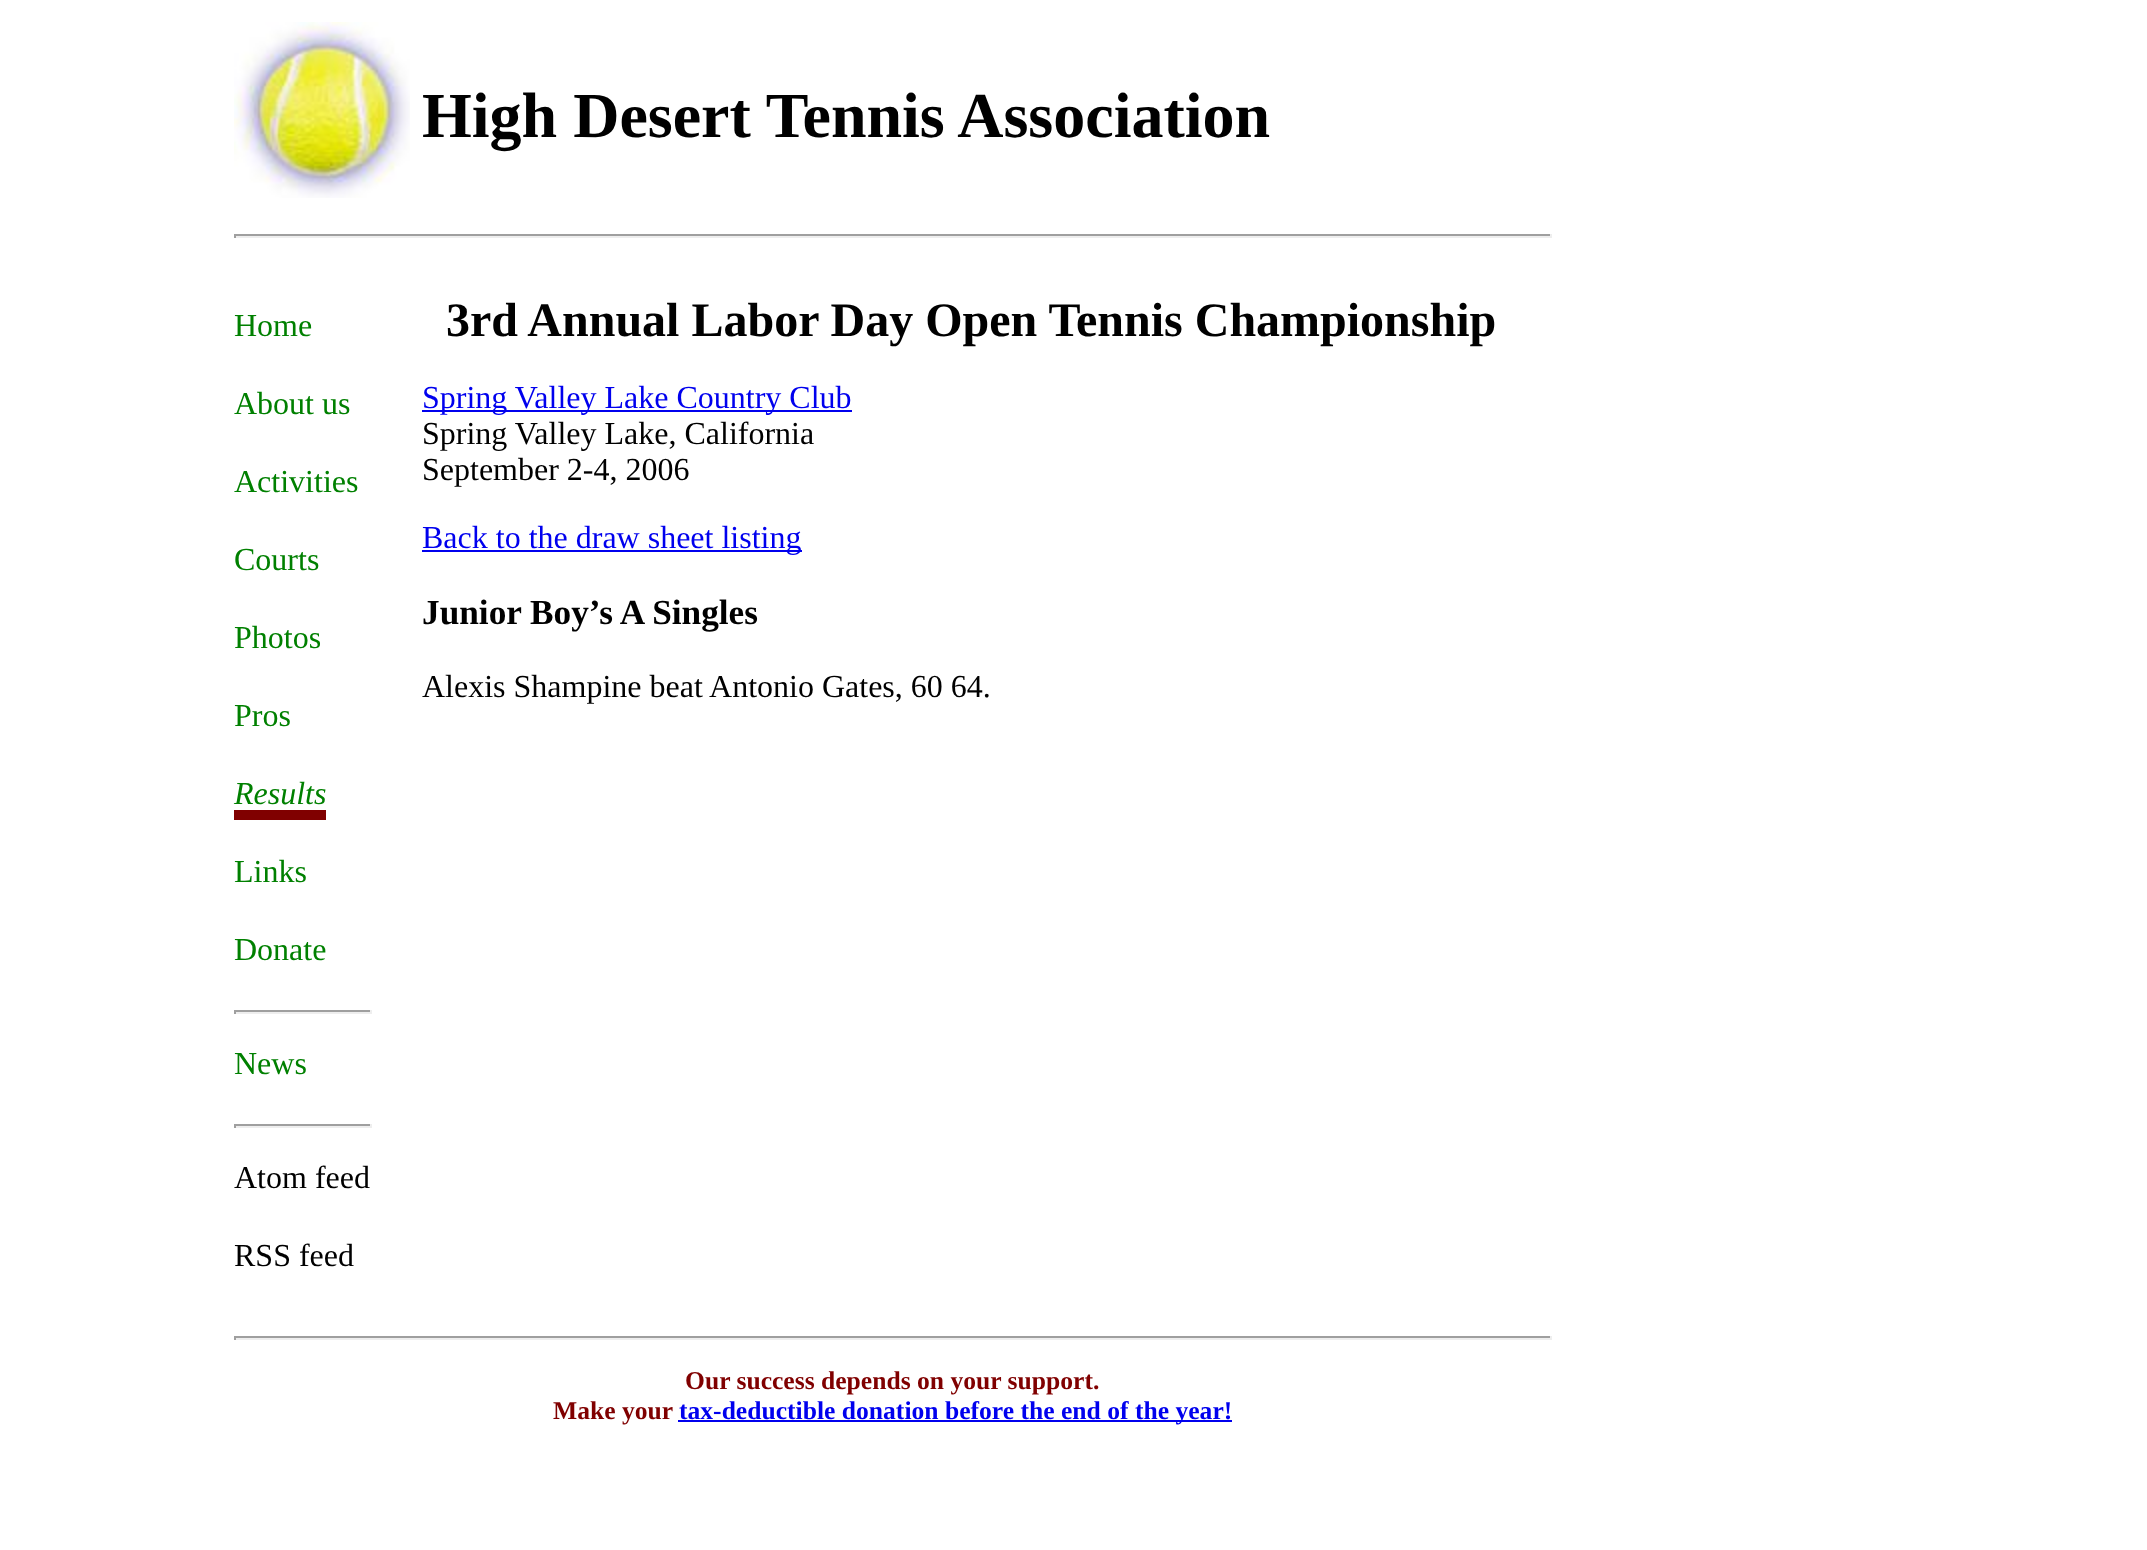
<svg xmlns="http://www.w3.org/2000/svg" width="2147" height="1550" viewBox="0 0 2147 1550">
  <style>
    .t1 { font: bold 64px Liberation Serif; fill: #000; }
    .t2 { font: 32px Liberation Serif; fill: #008000; }
    .t3 { font: italic 32px Liberation Serif; fill: #008000; }
    .t4 { font: 32px Liberation Serif; fill: #000; }
    .t5 { font: bold 48px Liberation Serif; fill: #000; }
    .t6 { font: 32px Liberation Serif; fill: #00e; }
    .t7 { font: bold 35.25px Liberation Serif; fill: #000; }
    .t8 { font: bold 25.6px Liberation Serif; fill: #800000; }
    .t9 { font: bold 25.6px Liberation Serif; fill: #00e; }
  </style>
  <rect width="100%" height="100%" fill="#fff"/>
  <image x="234" y="22" width="176" height="176" href="images/1.png"/>
  <text x="422" y="137" class="t1">High Desert Tennis Association</text>
  <rect x="234" y="234" width="1318" height="2" fill="#9f9f9f"/>
  <rect x="1550" y="234" width="2" height="4" fill="#eee"/>
  <rect x="234" y="236" width="1318" height="2" fill="#eee"/>
  <rect x="234" y="234" width="2" height="4" fill="#9f9f9f"/>
  <text x="234" y="336" class="t2">Home</text>
  <text x="234" y="414" class="t2">About us</text>
  <text x="234" y="492" class="t2">Activities</text>
  <text x="234" y="570" class="t2">Courts</text>
  <text x="234" y="648" class="t2">Photos</text>
  <text x="234" y="726" class="t2">Pros</text>
  <text x="234" y="804" class="t3">Results</text>
  <rect x="234" y="810" width="92" height="10" fill="#800000"/>
  <text x="234" y="882" class="t2">Links</text>
  <text x="234" y="960" class="t2">Donate</text>
  <rect x="234" y="1010" width="138" height="2" fill="#9f9f9f"/>
  <rect x="370" y="1010" width="2" height="4" fill="#eee"/>
  <rect x="234" y="1012" width="138" height="2" fill="#eee"/>
  <rect x="234" y="1010" width="2" height="4" fill="#9f9f9f"/>
  <text x="234" y="1074" class="t2">News</text>
  <rect x="234" y="1124" width="138" height="2" fill="#9f9f9f"/>
  <rect x="370" y="1124" width="2" height="4" fill="#eee"/>
  <rect x="234" y="1126" width="138" height="2" fill="#eee"/>
  <rect x="234" y="1124" width="2" height="4" fill="#9f9f9f"/>
  <text x="234" y="1188" class="t4">Atom feed</text>
  <text x="234" y="1266" class="t4">RSS feed</text>
  <text x="446" y="336" class="t5">3rd Annual Labor Day Open Tennis Championship</text>
  <rect x="422" y="410" width="430" height="2" fill="#00e"/>
  <text x="422" y="408" class="t6">Spring Valley Lake Country Club</text>
  <text x="422" y="444" class="t4">Spring Valley Lake, California</text>
  <text x="422" y="480" class="t4">September 2-4, 2006</text>
  <rect x="422" y="550" width="380" height="2" fill="#00e"/>
  <text x="422" y="548" class="t6">Back to the draw sheet listing</text>
  <text x="422" y="624" class="t7">Junior Boy’s A Singles</text>
  <text x="422" y="697" class="t4">Alexis Shampine beat Antonio Gates, 60 64.</text>
  <rect x="234" y="1336" width="1318" height="2" fill="#9f9f9f"/>
  <rect x="1550" y="1336" width="2" height="4" fill="#eee"/>
  <rect x="234" y="1338" width="1318" height="2" fill="#eee"/>
  <rect x="234" y="1336" width="2" height="4" fill="#9f9f9f"/>
  <text x="685" y="1389" class="t8">Our success depends on your support.</text>
  <text x="553" y="1419" class="t8">Make your</text>
  <rect x="678" y="1420" width="554" height="2" fill="#00e"/>
  <text x="679" y="1419" class="t9">tax-deductible donation before the end of the year!</text>
</svg>
